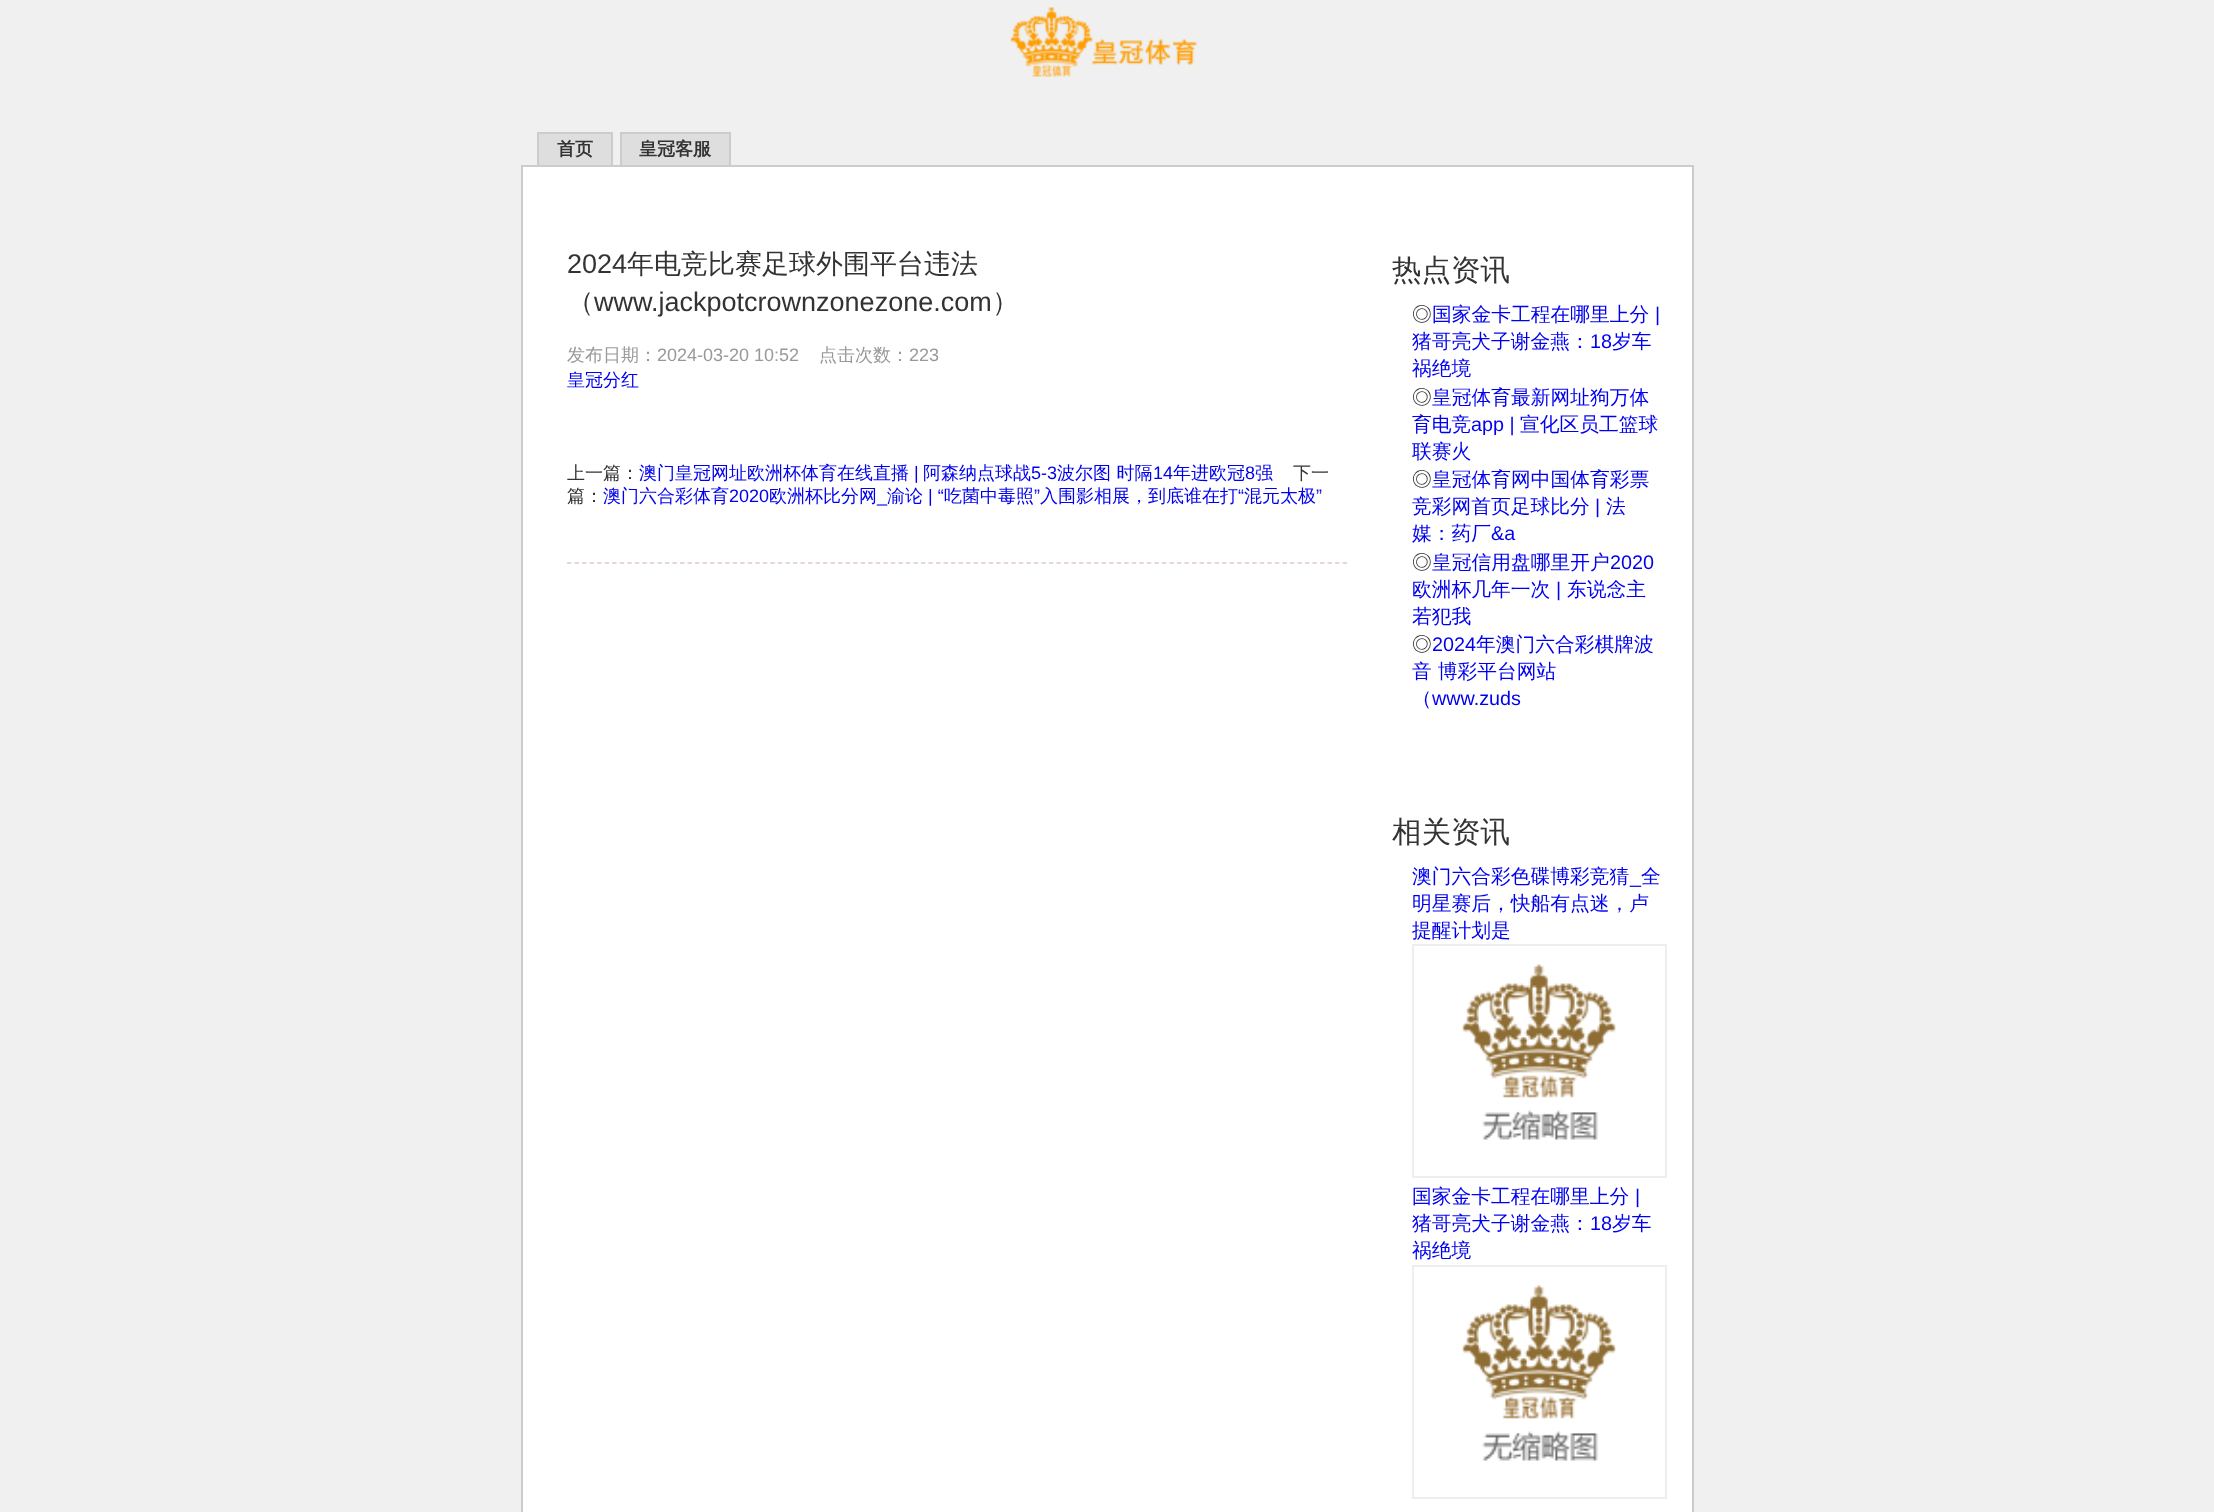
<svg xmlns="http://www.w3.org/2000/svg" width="2214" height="1512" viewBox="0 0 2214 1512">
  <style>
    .t1 { font: bold 18px WenQuanYi Zen Hei; fill: #333; }
    .t2 { font: 27px Liberation Sans; fill: #333; }
    .t3 { font: 500 27px WenQuanYi Zen Hei; fill: #333; }
    .t4 { font: 500 18px WenQuanYi Zen Hei; fill: #999; }
    .t5 { font: 18px Liberation Sans; fill: #999; }
    .t6 { font: 500 18px WenQuanYi Zen Hei; fill: #00e; }
    .t7 { font: 500 18px WenQuanYi Zen Hei; fill: #333; }
    .t8 { font: 18px Liberation Sans; fill: #00e; }
    .t9 { font: 500 29.5px WenQuanYi Zen Hei; fill: #333; }
    .t10 { font: 500 19.75px WenQuanYi Zen Hei; fill: #333; }
    .t11 { font: 500 19.75px WenQuanYi Zen Hei; fill: #00e; }
    .t12 { font: 19.75px Liberation Sans; fill: #00e; }
  </style>
  <rect width="100%" height="100%" fill="#f0f0f0"/>
  <image x="1010" y="7" width="187" height="70" href="images/1.png"/>
  <rect x="539" y="134" width="72" height="31" fill="#dedede"/>
  <rect x="537" y="132" width="75" height="2" fill="#ccc"/>
  <rect x="611" y="132" width="2" height="33" fill="#ccc"/>
  <rect x="537" y="132" width="2" height="33" fill="#ccc"/>
  <text x="557" y="155" class="t1">首页</text>
  <rect x="622" y="134" width="107" height="31" fill="#dedede"/>
  <rect x="620" y="132" width="111" height="2" fill="#ccc"/>
  <rect x="729" y="132" width="2" height="33" fill="#ccc"/>
  <rect x="620" y="132" width="2" height="33" fill="#ccc"/>
  <text x="639" y="155" class="t1">皇冠客服</text>
  <rect x="522" y="166" width="1171" height="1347" fill="#fff" stroke="#ccc" stroke-width="2"/>
  <path d="M567 563H1347" fill="none" stroke="#dcc" stroke-width="1.5" stroke-dasharray="4.5 3.03"/>
  <text x="567" y="273" class="t2">2024</text>
  <text x="627" y="273" class="t3">年电竞比赛足球外围平台违法</text>
  <text x="567" y="311" class="t3">（</text>
  <text x="594" y="311" class="t2">www.jackpotcrownzonezone.com</text>
  <text x="992" y="311" class="t3">）</text>
  <text x="567" y="361" class="t4">发布日期：</text>
  <text x="657" y="361" class="t5">2024-03-20 10:52</text>
  <text x="819" y="361" class="t4">点击次数：</text>
  <text x="909" y="361" class="t5">223</text>
  <text x="567" y="386" class="t6">皇冠分红</text>
  <text x="567" y="479" class="t7">上一篇：</text>
  <text x="639" y="479" class="t6">澳门皇冠网址欧洲杯体育在线直播</text>
  <text x="914" y="479" class="t8">|</text>
  <text x="923" y="479" class="t6">阿森纳点球战</text>
  <text x="1031" y="479" class="t8">5-3</text>
  <text x="1057" y="479" class="t6">波尔图 时隔</text>
  <text x="1153" y="479" class="t8">14</text>
  <text x="1173" y="479" class="t6">年进欧冠</text>
  <text x="1245" y="479" class="t8">8</text>
  <text x="1255" y="479" class="t6">强</text>
  <text x="1293" y="479" class="t7">下一</text>
  <text x="567" y="502" class="t7">篇：</text>
  <text x="603" y="502" class="t6">澳门六合彩体育</text>
  <text x="729" y="502" class="t8">2020</text>
  <text x="769" y="502" class="t6">欧洲杯比分网</text>
  <text x="877" y="502" class="t8">_</text>
  <text x="887" y="502" class="t6">渝论</text>
  <text x="928" y="502" class="t8">| “</text>
  <text x="944" y="502" class="t6">吃菌中毒照</text>
  <text x="1034" y="502" class="t8">”</text>
  <text x="1040" y="502" class="t6">入围影相展，到底谁在打</text>
  <text x="1238" y="502" class="t8">“</text>
  <text x="1244" y="502" class="t6">混元太极</text>
  <text x="1316" y="502" class="t8">”</text>
  <text x="1392" y="280" class="t9">热点资讯</text>
  <text x="1412" y="321" class="t10">◎</text>
  <text x="1432" y="321" class="t11">国家金卡工程在哪里上分</text>
  <text x="1655" y="321" class="t12">|</text>
  <text x="1412" y="348" class="t11">猪哥亮犬子谢金燕：</text>
  <text x="1590" y="348" class="t12">18</text>
  <text x="1612" y="348" class="t11">岁车</text>
  <text x="1412" y="375" class="t11">祸绝境</text>
  <text x="1412" y="404" class="t10">◎</text>
  <text x="1432" y="404" class="t11">皇冠体育最新网址狗万体</text>
  <text x="1412" y="431" class="t11">育电竞</text>
  <text x="1471" y="431" class="t12">app |</text>
  <text x="1520" y="431" class="t11">宣化区员工篮球</text>
  <text x="1412" y="458" class="t11">联赛火</text>
  <text x="1412" y="486" class="t10">◎</text>
  <text x="1432" y="486" class="t11">皇冠体育网中国体育彩票</text>
  <text x="1412" y="513" class="t11">竞彩网首页足球比分</text>
  <text x="1595" y="513" class="t12">|</text>
  <text x="1606" y="513" class="t11">法</text>
  <text x="1412" y="540" class="t11">媒：药厂</text>
  <text x="1491" y="540" class="t12">&amp;a</text>
  <text x="1412" y="569" class="t10">◎</text>
  <text x="1432" y="569" class="t11">皇冠信用盘哪里开户</text>
  <text x="1610" y="569" class="t12">2020</text>
  <text x="1412" y="596" class="t11">欧洲杯几年一次</text>
  <text x="1556" y="596" class="t12">|</text>
  <text x="1567" y="596" class="t11">东说念主</text>
  <text x="1412" y="623" class="t11">若犯我</text>
  <text x="1412" y="651" class="t10">◎</text>
  <text x="1432" y="651" class="t12">2024</text>
  <text x="1476" y="651" class="t11">年澳门六合彩棋牌波</text>
  <text x="1412" y="678" class="t11">音 博彩平台网站</text>
  <text x="1412" y="705" class="t11">（</text>
  <text x="1432" y="705" class="t12">www.zuds</text>
  <text x="1392" y="842" class="t9">相关资讯</text>
  <text x="1412" y="883" class="t11">澳门六合彩色碟博彩竞猜</text>
  <text x="1641" y="883" class="t11">全</text>
  <text x="1630" y="883" class="t12">_</text>
  <text x="1412" y="910" class="t11">明星赛后，快船有点迷，卢</text>
  <text x="1412" y="937" class="t11">提醒计划是</text>
  <rect x="1413" y="945" width="253" height="232" fill="none" stroke="#eee" stroke-width="2"/>
  <image x="1462" y="964" width="154" height="176" href="images/2.png"/>
  <text x="1412" y="1203" class="t11">国家金卡工程在哪里上分</text>
  <text x="1635" y="1203" class="t12">|</text>
  <text x="1412" y="1230" class="t11">猪哥亮犬子谢金燕：</text>
  <text x="1590" y="1230" class="t12">18</text>
  <text x="1612" y="1230" class="t11">岁车</text>
  <text x="1412" y="1257" class="t11">祸绝境</text>
  <rect x="1413" y="1266" width="253" height="232" fill="none" stroke="#eee" stroke-width="2"/>
  <image x="1462" y="1285" width="154" height="176" href="images/3.png"/>
</svg>
